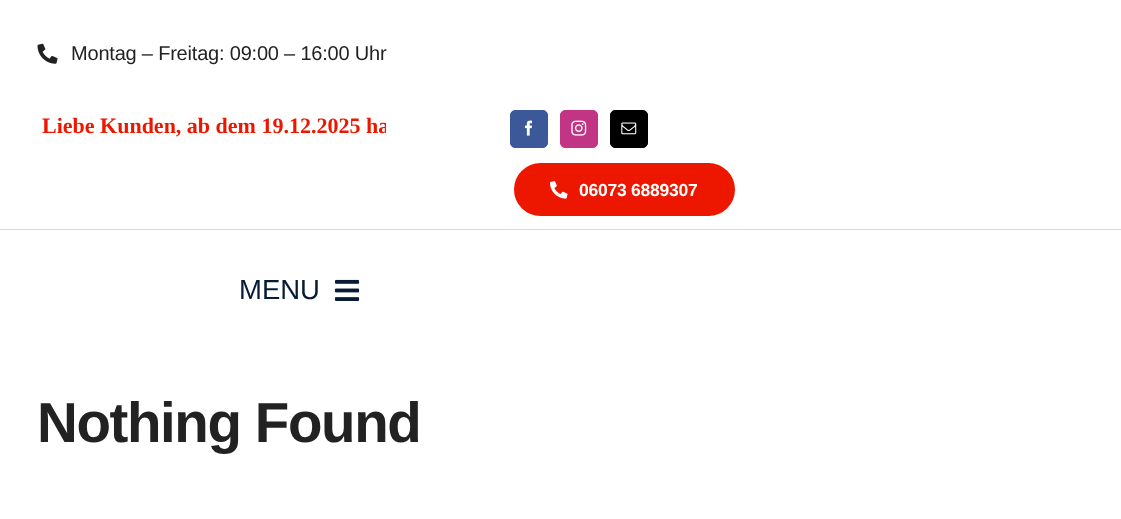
<svg xmlns="http://www.w3.org/2000/svg" width="1121" height="519" viewBox="0 0 1121 519">
  <style>
    .t1 { font: 20px Liberation Sans; letter-spacing: -0.2px; fill: #222; }
    .t2 { font: bold 22px Liberation Serif; fill: #ed1700; }
    .t3 { font: bold 17.5px Liberation Sans; letter-spacing: -0.25px; fill: #fff; }
    .t4 { font: 27.5px Liberation Sans; fill: #081b36; }
    .t5 { font: bold 56.5px Liberation Sans; letter-spacing: -1.4px; fill: #222; }
  </style>
  <defs>
    <clipPath id="clip1"><rect x="38" y="106" width="348" height="38"/></clipPath>
  </defs>
  <rect width="100%" height="100%" fill="#fff"/>
  <rect x="0" y="229" width="1121" height="1" fill="#dbdbdb"/>
  <image x="37" y="43" width="21" height="21" href="images/1.png"/>
  <text x="71" y="60" class="t1">Montag – Freitag: 09:00 – 16:00 Uhr</text>
  <g clip-path="url(#clip1)">
    <text x="42" y="133" class="t2">Liebe Kunden, ab dem 19.12.2025 ha</text>
  </g>
  <rect x="510.5" y="110.5" width="37" height="37" rx="4.5" fill="#3b5998" stroke="#3b5998"/>
  <image x="525" y="120" width="7" height="16" href="images/2.png"/>
  <rect x="560.5" y="110.5" width="37" height="37" rx="4.5" fill="#c13584" stroke="#c13584"/>
  <image x="571" y="120" width="16" height="16" href="images/3.png"/>
  <rect x="610.5" y="110.5" width="37" height="37" rx="4.5" fill="#000" stroke="#000"/>
  <image x="621" y="122" width="16" height="13" href="images/4.png"/>
  <rect x="514" y="163" width="221" height="53" rx="26.5" fill="#ed1700"/>
  <image x="550" y="181" width="18" height="18" href="images/5.png"/>
  <text x="579" y="196" class="t3">06073 6889307</text>
  <text x="239" y="299" class="t4">MENU</text>
  <image x="335" y="279" width="25" height="22" href="images/6.png"/>
  <text x="37" y="442" class="t5">Nothing Found</text>
</svg>
